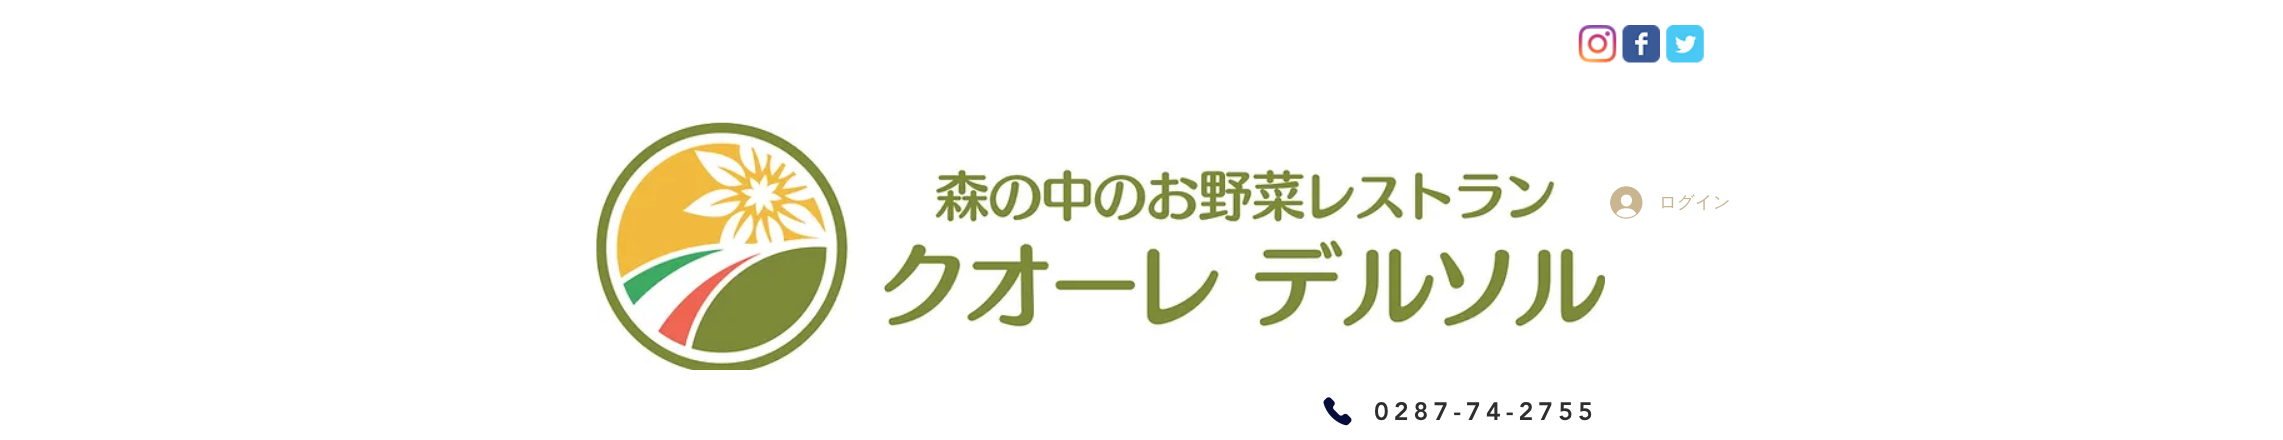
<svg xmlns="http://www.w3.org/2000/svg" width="2283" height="440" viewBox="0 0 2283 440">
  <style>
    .t1 { font: 500 17.5px WenQuanYi Zen Hei; fill: #c9b691; }
    .t2 { font: 900 25px 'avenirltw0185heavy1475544'; letter-spacing: 5px; fill: #2f2e2e; }
  </style>
  <rect width="100%" height="100%" fill="#fff"/>
  <image x="1578" y="25" width="39" height="38" href="images/1.png"/>
  <image x="1622" y="25" width="38" height="38" href="images/2.png"/>
  <image x="1666" y="25" width="38" height="38" href="images/3.png"/>
  <image x="596" y="122" width="1009" height="248" href="images/4.png"/>
  <image x="1610" y="186" width="33" height="33" href="images/5.png"/>
  <text x="1659" y="208" class="t1">ログイン</text>
  <image x="1323" y="397" width="29" height="29" href="images/6.png"/>
  <text x="1374" y="420" class="t2">0287-74-2755</text>
</svg>
